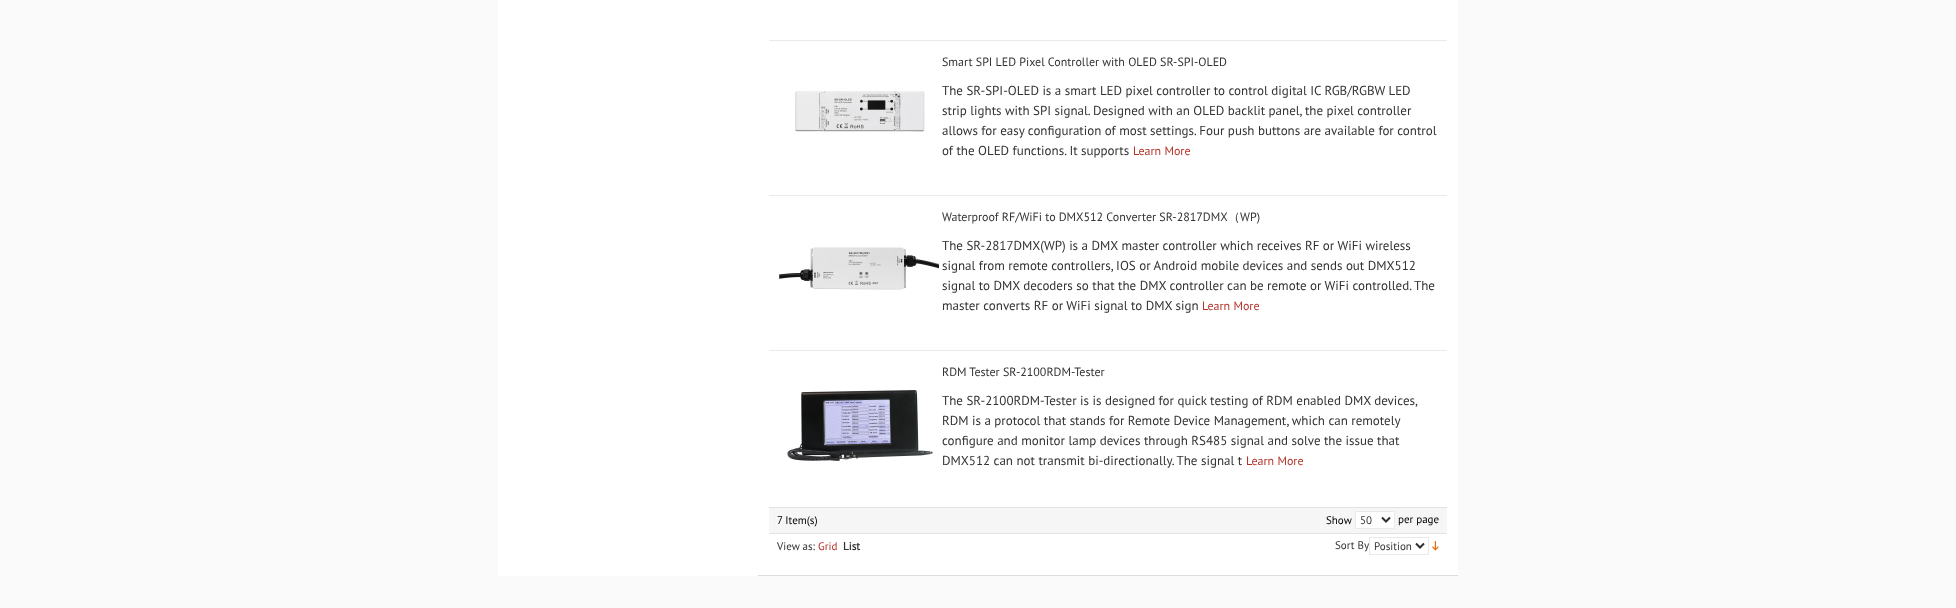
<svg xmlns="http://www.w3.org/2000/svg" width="1956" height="608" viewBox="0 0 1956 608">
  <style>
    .t1 { font: 12px PT Sans; fill: #333; }
    .t2 { font: 13px PT Sans; fill: #333; }
    .t3 { font: 12px PT Sans; fill: #b53329; }
    .t4 { font: 500 12px WenQuanYi Zen Hei; fill: #333; }
    .t5 { font: 11px PT Sans; fill: #010101; }
    .t6 { font: 11px PT Sans; fill: #333; }
    .t7 { font: 11px PT Sans; fill: #b53329; }
    .t8 { font: bold 11px PT Sans; fill: #333; }
  </style>
  <rect width="100%" height="100%" fill="#fafafa"/>
  <rect x="498" y="0" width="960" height="576" fill="#fff"/>
  <rect x="769" y="40" width="678" height="1" fill="#e9e9e9"/>
  <rect x="769" y="195" width="678" height="1" fill="#e9e9e9"/>
  <image x="795" y="91" width="130" height="41" href="images/1.png"/>
  <text x="942" y="66" class="t1">Smart SPI LED Pixel Controller with OLED SR-SPI-OLED</text>
  <text x="942" y="95" class="t2">The SR-SPI-OLED is a smart LED pixel controller to control digital IC RGB/RGBW LED</text>
  <text x="942" y="115" class="t2">strip lights with SPI signal. Designed with an OLED backlit panel, the pixel controller</text>
  <text x="942" y="135" class="t2">allows for easy configuration of most settings. Four push buttons are available for control</text>
  <text x="942" y="155" class="t2">of the OLED functions. It supports</text>
  <text x="1133" y="155" class="t3">Learn More</text>
  <rect x="769" y="350" width="678" height="1" fill="#e9e9e9"/>
  <image x="779" y="247" width="160" height="43" href="images/2.png"/>
  <text x="942" y="221" class="t1">Waterproof RF/WiFi to DMX512 Converter SR-2817DMX</text>
  <text x="1228" y="221" class="t4">（</text>
  <text x="1240" y="221" class="t1">WP)</text>
  <text x="942" y="250" class="t2">The SR-2817DMX(WP) is a DMX master controller which receives RF or WiFi wireless</text>
  <text x="942" y="270" class="t2">signal from remote controllers, IOS or Android mobile devices and sends out DMX512</text>
  <text x="942" y="290" class="t2">signal to DMX decoders so that the DMX controller can be remote or WiFi controlled. The</text>
  <text x="942" y="310" class="t2">master converts RF or WiFi signal to DMX sign</text>
  <text x="1202" y="310" class="t3">Learn More</text>
  <image x="787" y="390" width="146" height="71" href="images/3.png"/>
  <text x="942" y="376" class="t1">RDM Tester SR-2100RDM-Tester</text>
  <text x="942" y="405" class="t2">The SR-2100RDM-Tester is is designed for quick testing of RDM enabled DMX devices,</text>
  <text x="942" y="425" class="t2">RDM is a protocol that stands for Remote Device Management, which can remotely</text>
  <text x="942" y="445" class="t2">configure and monitor lamp devices through RS485 signal and solve the issue that</text>
  <text x="942" y="465" class="t2">DMX512 can not transmit bi-directionally. The signal t</text>
  <text x="1246" y="465" class="t3">Learn More</text>
  <rect x="769" y="508" width="678" height="25" fill="#f6f6f6"/>
  <rect x="769" y="507" width="678" height="1" fill="#e2e2e2"/>
  <text x="777" y="524" class="t5">7 Item(s)</text>
  <text x="1326" y="524" class="t5">Show</text>
  <rect x="1355.5" y="511.5" width="39" height="17" fill="#fff" stroke="#e9e9e9"/>
  <path d="M1382 517.5L1386 521.5L1390 517.5" fill="none" stroke="#2f2f2f" stroke-width="2"/>
  <text x="1360" y="524" class="t6">50</text>
  <text x="1398" y="523" class="t5">per page</text>
  <rect x="769" y="533" width="678" height="1" fill="#e2e2e2"/>
  <text x="777" y="550" class="t6">View as:</text>
  <text x="818" y="550" class="t7">Grid</text>
  <text x="843" y="550" class="t8">List</text>
  <text x="1335" y="549" class="t6">Sort By</text>
  <rect x="1369.5" y="537.5" width="59" height="17" fill="none" stroke="#e9e9e9"/>
  <path d="M1416 543.5L1420 547.5L1424 543.5" fill="none" stroke="#2f2f2f" stroke-width="2"/>
  <text x="1374" y="550" class="t6">Position</text>
  <image x="1432" y="541" width="7" height="10" href="images/4.png"/>
  <rect x="758" y="575" width="700" height="1" fill="#ddd"/>
</svg>
